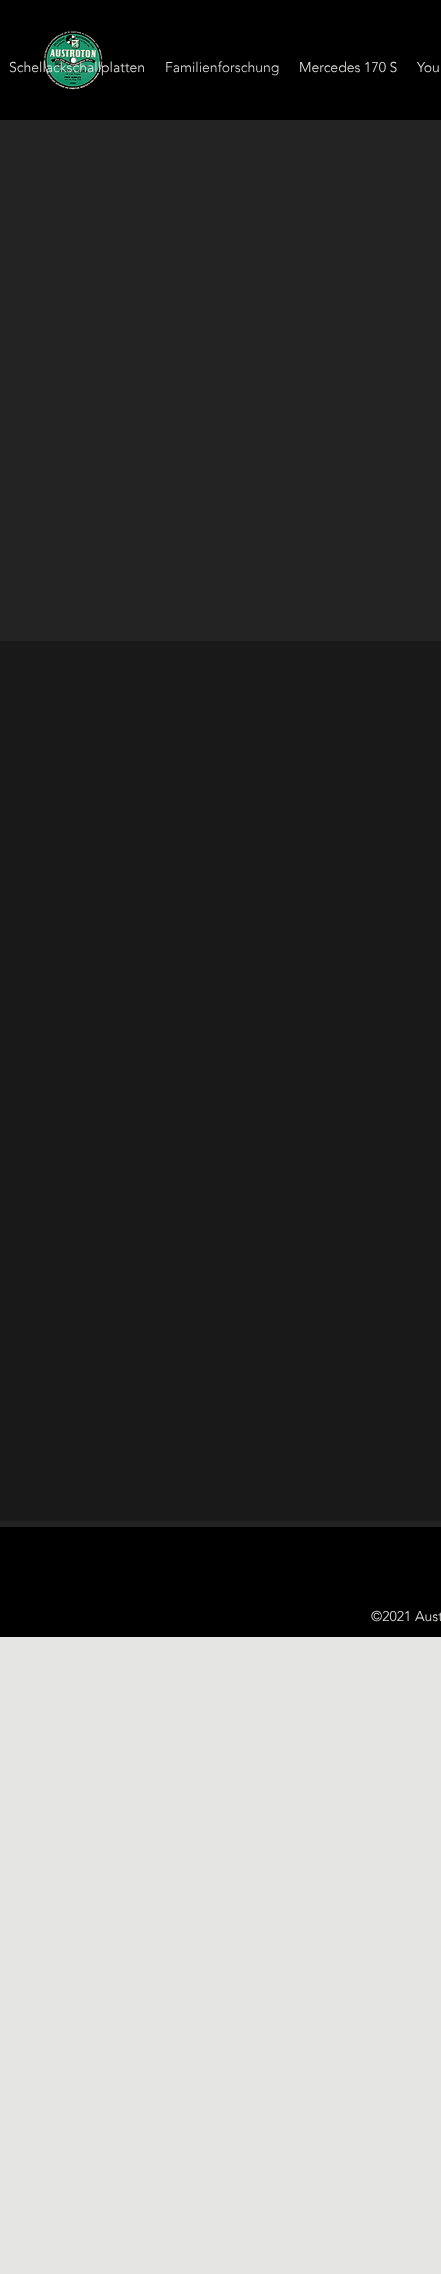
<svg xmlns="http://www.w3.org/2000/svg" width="441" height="2274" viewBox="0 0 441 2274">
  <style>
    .t1 { font: 300 14px 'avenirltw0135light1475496'; fill: #e5e5e4; }
    .t2 { font: 300 14px 'avenirltw0135light1475496'; fill: #dfdfdf; }
  </style>
  <rect width="100%" height="100%" fill="#e5e5e4"/>
  <rect x="0" y="0" width="441" height="120" fill="#000"/>
  <image x="43" y="30" width="60" height="60" href="images/1.png"/>
  <text x="9" y="72" class="t1">Schellackschallplatten</text>
  <text x="165" y="72" class="t2">Familienforschung</text>
  <text x="299" y="72" class="t1">Mercedes 170 S</text>
  <text x="417" y="72" class="t1">You</text>
  <rect x="0" y="120" width="441" height="521" fill="#242323"/>
  <rect x="0" y="641" width="441" height="880" fill="#191919"/>
  <rect x="0" y="1527" width="441" height="110" fill="#000"/>
  <rect x="0" y="1521" width="441" height="6" fill="#242323"/>
  <text x="371" y="1621" class="t1">©2021 Aust</text>
</svg>
